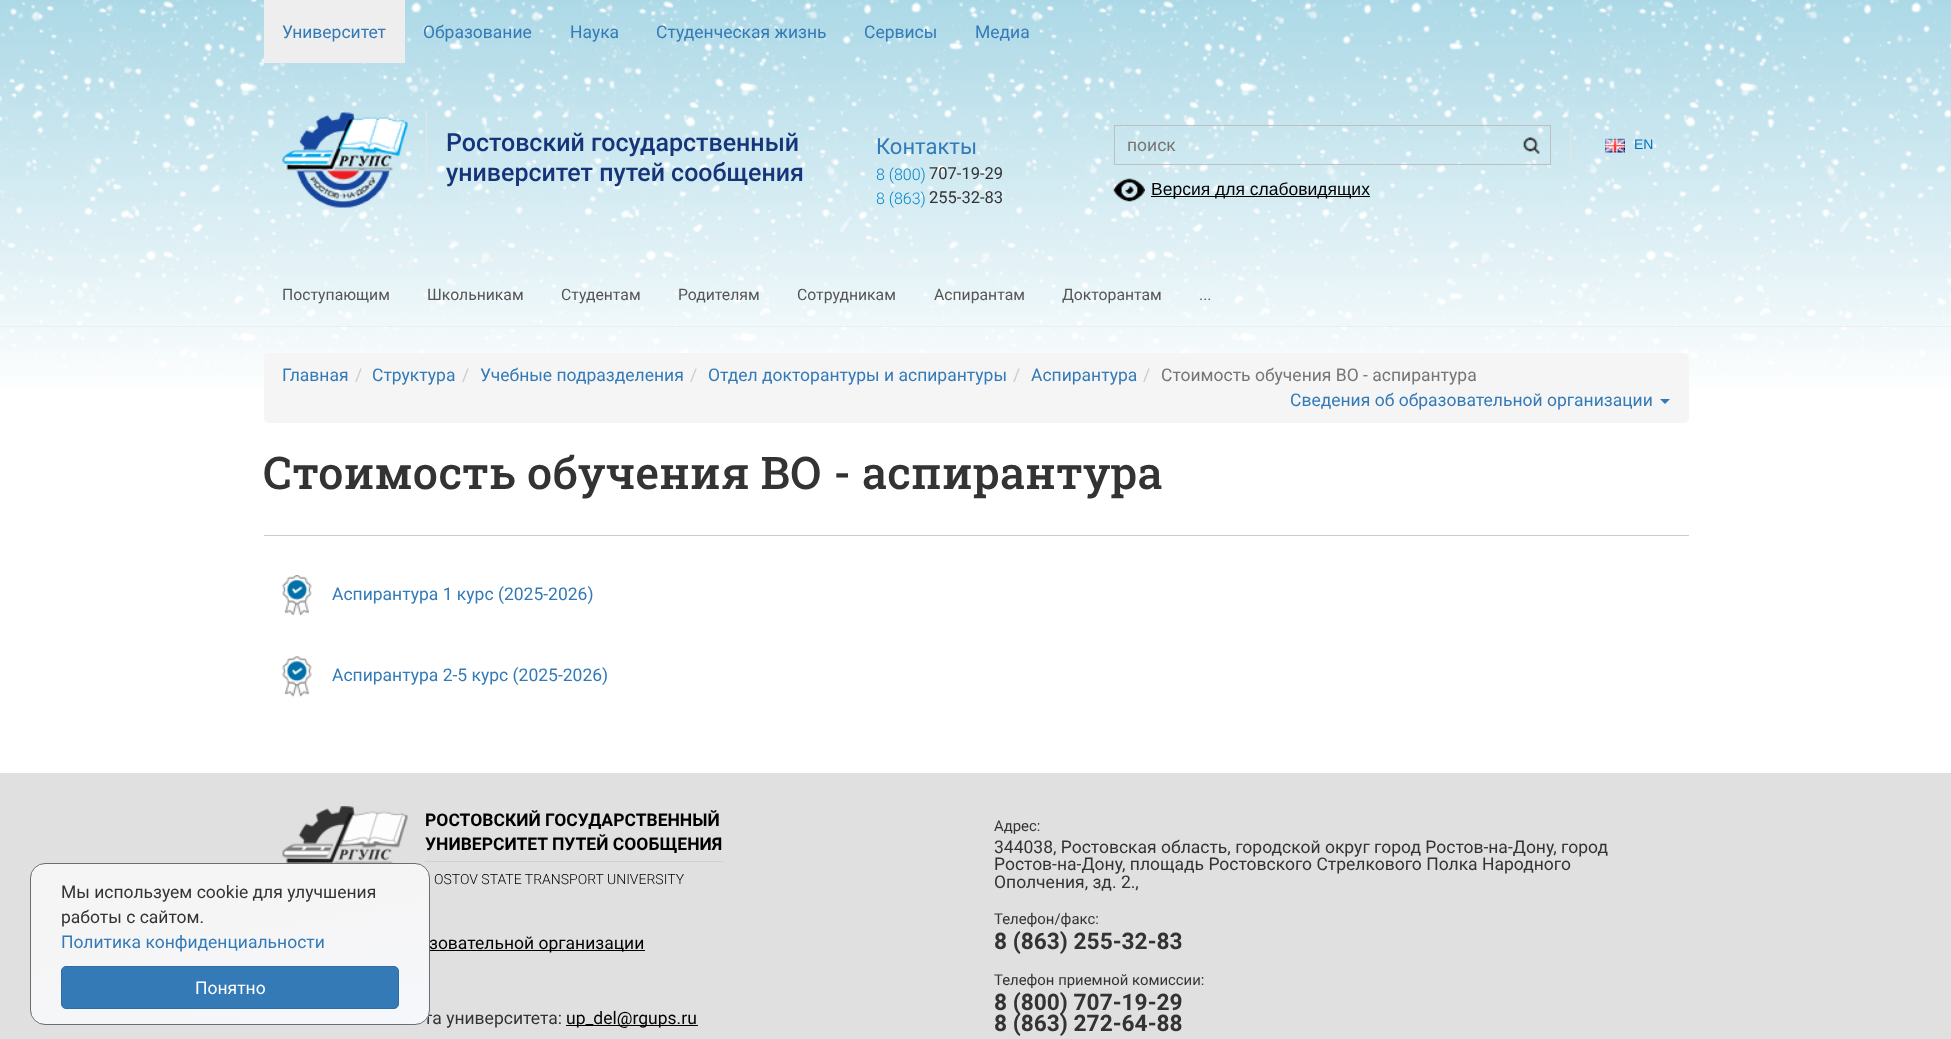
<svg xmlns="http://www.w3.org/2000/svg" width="1951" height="1039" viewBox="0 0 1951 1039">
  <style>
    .t1 { font: 17.5px Roboto; fill: #337ab7; }
    .t2 { font: 500 25px Roboto; fill: #163479; }
    .t3 { font: 22px Roboto; fill: #337ab7; }
    .t4 { font: 300 16px Roboto; fill: #0084ca; }
    .t5 { font: 16.5px Roboto; fill: #333; }
    .t6 { font: 17.5px Roboto; fill: #757575; }
    .t7 { font: 17.5px Liberation Sans; fill: #000; }
    .t8 { font: 14px Liberation Sans; fill: #0070be; }
    .t9 { font: 15.75px Roboto; fill: #555; }
    .t10 { font: 17.5px Roboto; fill: #ccc; }
    .t11 { font: 500 45px Roboto Slab; fill: #333; }
    .t12 { font: 17.5px Roboto; fill: #333; }
    .t13 { font: 17.5px Roboto; fill: #fff; }
    .t14 { font: bold 17.5px Roboto; fill: #000; }
    .t15 { font: 300 14px Roboto; fill: #000; }
    .t16 { font: 17.5px Roboto; fill: #000; }
    .t17 { font: 14.9px Roboto; fill: #333; }
    .t18 { font: bold 22.75px Roboto; fill: #333; }
  </style>
  <defs>
    <linearGradient id="g1" gradientUnits="userSpaceOnUse" x1="976" y1="-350" x2="976" y2="400"><stop offset="0" stop-color="#64b7d1"/><stop offset="1" stop-color="#fff"/></linearGradient>
    <clipPath id="clip1"><rect x="30" y="863" width="400" height="162" rx="15"/></clipPath>
    <linearGradient id="g2" gradientUnits="userSpaceOnUse" x1="208" y1="829" x2="252" y2="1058"><stop offset="0.3" stop-color="#f5f5f5"/><stop offset="1" stop-color="#f6f7fb"/></linearGradient>
  </defs>
  <rect width="100%" height="100%" fill="#fff"/>
  <rect x="0" y="0" width="1951" height="388" fill="url(#g1)"/>
  <image x="1" y="0" width="1950" height="378" href="images/2.png"/>
  <image x="0" y="0" width="1951" height="378" href="images/1.png"/>
  <rect x="264" y="0" width="141" height="63" fill="#eee"/>
  <text x="282" y="38" class="t1">Университет</text>
  <text x="423" y="38" class="t1">Образование</text>
  <text x="570" y="38" class="t1">Наука</text>
  <text x="656" y="38" class="t1">Студенческая жизнь</text>
  <text x="864" y="38" class="t1">Сервисы</text>
  <text x="975" y="38" class="t1">Медиа</text>
  <rect x="426" y="113" width="1" height="95" fill="#e5e5e5"/>
  <image x="282" y="112" width="126" height="96" href="images/3.png"/>
  <text x="446" y="151" class="t2">Ростовский государственный</text>
  <text x="446" y="181" class="t2">университет путей сообщения</text>
  <text x="876" y="154" class="t3">Контакты</text>
  <text x="876" y="180" class="t4">8 (800)</text>
  <text x="929" y="179" class="t5">707-19-29</text>
  <text x="876" y="204" class="t4">8 (863)</text>
  <text x="929" y="203" class="t5">255-32-83</text>
  <rect x="1114.5" y="125.5" width="436" height="39" fill="none" stroke="#bfbfbf"/>
  <text x="1127" y="151" class="t6">поиск</text>
  <image x="1522" y="137" width="18" height="17" href="images/4.png"/>
  <image x="1113" y="178" width="32" height="24" href="images/5.png"/>
  <rect x="1151" y="196" width="219" height="1" fill="#000"/>
  <text x="1151" y="195" class="t7">Версия для слабовидящих</text>
  <rect x="1570" y="126" width="1" height="37" fill="#e5e5e5"/>
  <image x="1605" y="138" width="20" height="15" href="images/6.png"/>
  <text x="1634" y="149" class="t8">EN</text>
  <rect x="0" y="263" width="1951" height="1" fill="#eee"/>
  <rect x="0" y="326" width="1951" height="1" fill="#eee"/>
  <text x="282" y="300" class="t9">Поступающим</text>
  <text x="427" y="300" class="t9">Школьникам</text>
  <text x="561" y="300" class="t9">Студентам</text>
  <text x="678" y="300" class="t9">Родителям</text>
  <text x="797" y="300" class="t9">Сотрудникам</text>
  <text x="934" y="300" class="t9">Аспирантам</text>
  <text x="1062" y="300" class="t9">Докторантам</text>
  <text x="1199" y="300" class="t9">...</text>
  <rect x="264" y="353" width="1425" height="70" rx="5" fill="#f5f5f5"/>
  <text x="282" y="381" class="t1">Главная</text>
  <text x="355" y="381" class="t10">/</text>
  <text x="372" y="381" class="t1">Структура</text>
  <text x="462" y="381" class="t10">/</text>
  <text x="480" y="381" class="t1">Учебные подразделения</text>
  <text x="690" y="381" class="t10">/</text>
  <text x="708" y="381" class="t1">Отдел докторантуры и аспирантуры</text>
  <text x="1013" y="381" class="t10">/</text>
  <text x="1031" y="381" class="t1">Аспирантура</text>
  <text x="1143" y="381" class="t10">/</text>
  <text x="1161" y="381" class="t6">Стоимость обучения ВО - аспирантура</text>
  <text x="1290" y="406" class="t1">Сведения об образовательной организации</text>
  <path d="M1660 399H1670L1665 404Z" fill="#337ab7"/>
  <text x="263" y="489" class="t11">Стоимость обучения ВО - аспирантура</text>
  <rect x="264" y="535" width="1425" height="1" fill="#ccc"/>
  <image x="282" y="575" width="30" height="40" href="images/7.png"/>
  <text x="332" y="600" class="t1">Аспирантура 1 курс (2025-2026)</text>
  <image x="282" y="656" width="30" height="41" href="images/8.png"/>
  <text x="332" y="681" class="t1">Аспирантура 2-5 курс (2025-2026)</text>
  <rect x="0" y="773" width="1951" height="266" fill="#e0e0e0"/>
  <text x="424" y="1024" class="t12">та университета:</text>
  <g clip-path="url(#clip1)">
    <rect x="31" y="864" width="398" height="160" fill="url(#g2)"/>
  </g>
  <rect x="30.5" y="863.5" width="399" height="161" rx="14.5" fill="none" stroke="#6b6d75"/>
  <text x="61" y="898" class="t12">Мы используем cookie для улучшения</text>
  <text x="61" y="923" class="t12">работы с сайтом.</text>
  <text x="61" y="948" class="t1">Политика конфиденциальности</text>
  <rect x="61.5" y="966.5" width="337" height="42" rx="4.5" fill="#337ab7" stroke="#2e6da4"/>
  <text x="195" y="994" class="t13">Понятно</text>
  <image x="282" y="806" width="126" height="57" href="images/9.png"/>
  <rect x="425" y="861" width="298" height="1" fill="#d1d1d1"/>
  <text x="425" y="826" class="t14">РОСТОВСКИЙ ГОСУДАРСТВЕННЫЙ</text>
  <text x="425" y="850" class="t14">УНИВЕРСИТЕТ ПУТЕЙ СООБЩЕНИЯ</text>
  <text x="434" y="884" class="t15">OSTOV STATE TRANSPORT UNIVERSITY</text>
  <rect x="430" y="950" width="215" height="1" fill="#000"/>
  <text x="429" y="949" class="t16">зовательной организации</text>
  <rect x="566" y="1025" width="132" height="1" fill="#000"/>
  <text x="566" y="1024" class="t16">up_del@rgups.ru</text>
  <text x="994" y="831" class="t17">Адрес:</text>
  <text x="994" y="853" class="t12">344038, Ростовская область, городской округ город Ростов-на-Дону, город</text>
  <text x="994" y="870" class="t12">Ростов-на-Дону, площадь Ростовского Стрелкового Полка Народного</text>
  <text x="994" y="888" class="t12">Ополчения, зд. 2.,</text>
  <text x="994" y="924" class="t17">Телефон/факс:</text>
  <text x="994" y="949" class="t18">8 (863) 255-32-83</text>
  <text x="994" y="985" class="t17">Телефон приемной комиссии:</text>
  <text x="994" y="1010" class="t18">8 (800) 707-19-29</text>
  <text x="994" y="1031" class="t18">8 (863) 272-64-88</text>
</svg>
